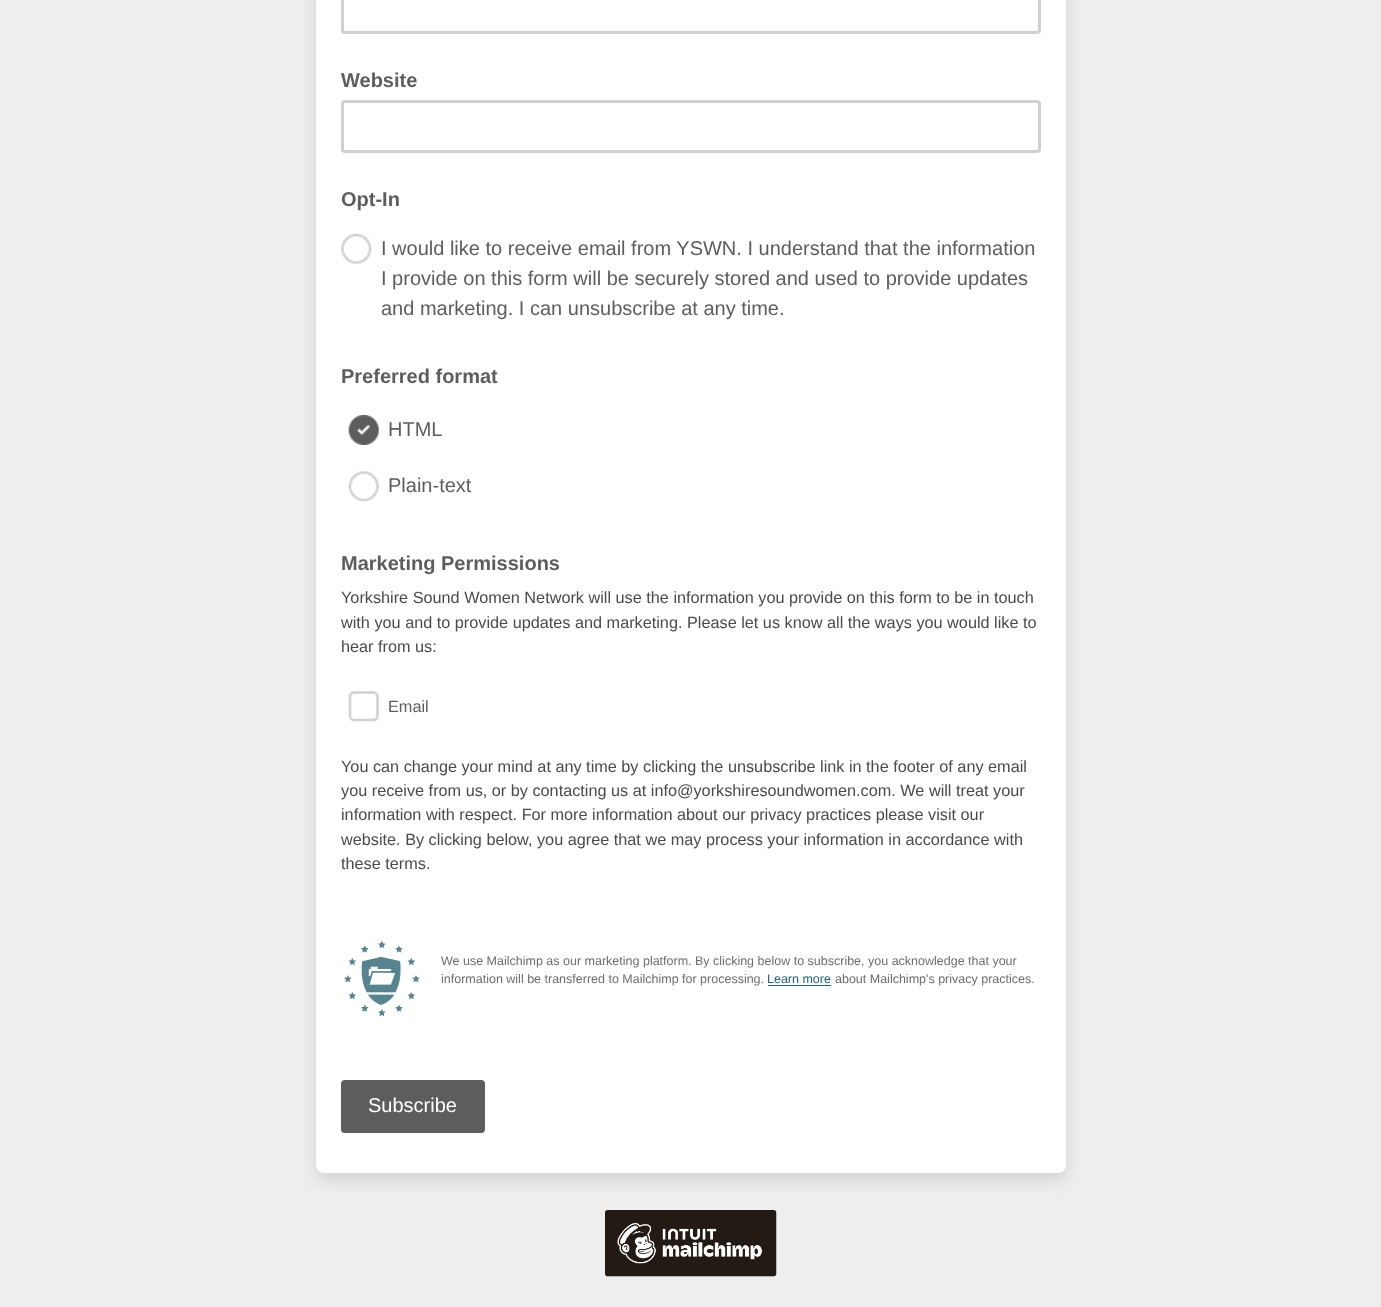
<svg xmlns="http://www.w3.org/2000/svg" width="1381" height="1307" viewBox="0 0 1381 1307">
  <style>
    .t1 { font: bold 20px Liberation Sans; fill: #5d5d5d; }
    .t2 { font: 20px Liberation Sans; fill: #5d5d5d; }
    .t3 { font: 16.25px Liberation Sans; fill: #4a4a4a; }
    .t4 { font: 16.25px Liberation Sans; fill: #5d5d5d; }
    .t5 { font: 12.5px Liberation Sans; fill: #6d6d6d; }
    .t6 { font: 12.5px Liberation Sans; fill: #206578; }
    .t7 { font: 20px Liberation Sans; fill: #fff; }
  </style>
  <rect width="100%" height="100%" fill="#eee"/>
  <rect x="316" y="-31" width="750" height="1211" rx="8" fill="#0d12161f" filter="blur(7.5px)"/>
  <rect x="316" y="-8" width="750" height="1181" rx="8" fill="#fff"/>
  <rect x="342.5" y="-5.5" width="697" height="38" rx="2.5" fill="none" stroke="#d0d0d0" stroke-width="3"/>
  <text x="341" y="87" class="t1">Website</text>
  <rect x="342.5" y="101.5" width="697" height="50" rx="2.5" fill="none" stroke="#d0d0d0" stroke-width="3"/>
  <text x="341" y="206" class="t1">Opt-In</text>
  <image x="341" y="233" width="31" height="31" href="images/1.png"/>
  <text x="381" y="255" class="t2">I would like to receive email from YSWN. I understand that the information</text>
  <text x="381" y="285" class="t2">I provide on this form will be securely stored and used to provide updates</text>
  <text x="381" y="315" class="t2">and marketing. I can unsubscribe at any time.</text>
  <text x="341" y="383" class="t1">Preferred format</text>
  <image x="348" y="415" width="31" height="30" href="images/2.png"/>
  <text x="388" y="436" class="t2">HTML</text>
  <image x="348" y="471" width="31" height="31" href="images/3.png"/>
  <text x="388" y="492" class="t2">Plain-text</text>
  <text x="341" y="570" class="t1">Marketing Permissions</text>
  <text x="341" y="603" class="t3">Yorkshire Sound Women Network will use the information you provide on this form to be in touch</text>
  <text x="341" y="628" class="t3">with you and to provide updates and marketing. Please let us know all the ways you would like to</text>
  <text x="341" y="652" class="t3">hear from us:</text>
  <image x="348" y="691" width="31" height="31" href="images/4.png"/>
  <text x="388" y="712" class="t4">Email</text>
  <text x="341" y="772" class="t3">You can change your mind at any time by clicking the unsubscribe link in the footer of any email</text>
  <text x="341" y="796" class="t3">you receive from us, or by contacting us at info@yorkshiresoundwomen.com. We will treat your</text>
  <text x="341" y="820" class="t3">information with respect. For more information about our privacy practices please visit our</text>
  <text x="341" y="845" class="t3">website. By clicking below, you agree that we may process your information in accordance with</text>
  <text x="341" y="869" class="t3">these terms.</text>
  <image x="344" y="941" width="76" height="76" href="images/5.png"/>
  <text x="441" y="965" class="t5">We use Mailchimp as our marketing platform. By clicking below to subscribe, you acknowledge that your</text>
  <text x="441" y="983" class="t5">information will be transferred to Mailchimp for processing.</text>
  <text x="767" y="983" class="t6">Learn more</text>
  <rect x="768" y="985" width="63" height="1" fill="#206578"/>
  <text x="835" y="983" class="t5">about Mailchimp's privacy practices.</text>
  <rect x="341" y="1080" width="144" height="53" rx="4" fill="#5d5d5d"/>
  <text x="368" y="1112" class="t7">Subscribe</text>
  <image x="605" y="1210" width="172" height="67" href="images/6.png"/>
</svg>
